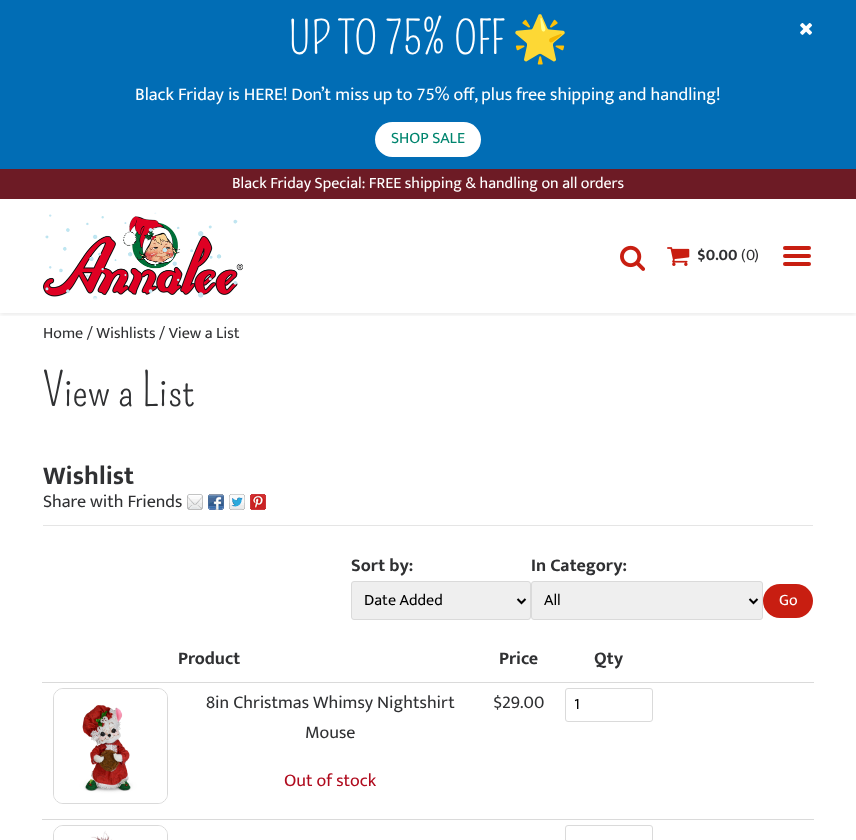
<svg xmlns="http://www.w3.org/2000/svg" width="856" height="840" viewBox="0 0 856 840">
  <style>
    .t1 { font: 45px Pompiere; fill: #fff; }
    .t2 { font: 45px Noto Color Emoji; fill: #fff; }
    .t3 { font: 18px Mukta; fill: #fff; }
    .t4 { font: 16px Mukta; fill: #00856e; }
    .t5 { font: 16px Mukta; fill: #fff; }
    .t6 { font: bold 16px Mukta; fill: #303133; }
    .t7 { font: 16px Mukta; fill: #303133; }
    .t8 { font: 46px Pompiere; fill: #303133; }
    .t9 { font: bold 26px Mukta; fill: #303133; }
    .t10 { font: 18px Mukta; fill: #303133; }
    .t11 { font: bold 18px Mukta; fill: #303133; }
    .t12 { font: 16px Mukta; fill: #000; }
    .t13 { font: 18px Mukta; fill: #b00b1e; }
  </style>
  <defs>
    <clipPath id="clip1"><rect x="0" y="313" width="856" height="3"/></clipPath>
  </defs>
  <rect width="100%" height="100%" fill="#fff"/>
  <rect x="0" y="0" width="856" height="169" fill="#016db5"/>
  <text x="288" y="54" class="t1">UP TO 75% OFF</text>
  <text x="512" y="54" class="t2">🌟</text>
  <text x="135" y="100" class="t3">Black Friday is HERE! Don’t miss up to 75% off, plus free shipping and handling!</text>
  <rect x="375" y="122" width="106" height="35" rx="17.5" fill="#fff"/>
  <text x="391" y="143" class="t4">SHOP SALE</text>
  <image x="800" y="23" width="12" height="12" href="images/1.png"/>
  <rect x="0" y="169" width="856" height="30" fill="#6d1b25"/>
  <text x="232" y="188" class="t5">Black Friday Special: FREE shipping &amp; handling on all orders</text>
  <g clip-path="url(#clip1)">
    <rect x="0" y="201" width="856" height="114" fill="#00000014" filter="blur(2px)"/>
  </g>
  <image x="43" y="212" width="200" height="88" href="images/2.png"/>
  <image x="620" y="245" width="25" height="26" href="images/3.png"/>
  <image x="667" y="247" width="23" height="19" href="images/4.png"/>
  <text x="697" y="260" class="t6">$0.00</text>
  <text x="741" y="260" class="t7">(</text>
  <text x="746" y="260" class="t7">0</text>
  <text x="754" y="260" class="t7">)</text>
  <rect x="783" y="246" width="28" height="4" rx="2" fill="#c81e11"/>
  <rect x="783" y="254" width="28" height="4" rx="2" fill="#c81e11"/>
  <rect x="783" y="262" width="28" height="4" rx="2" fill="#c81e11"/>
  <text x="43" y="338" class="t7">Home / Wishlists / View a List</text>
  <text x="43" y="406" class="t8">View a List</text>
  <text x="43" y="484" class="t9">Wishlist</text>
  <rect x="43" y="525" width="770" height="1" fill="#e5e5e5"/>
  <text x="43" y="507" class="t10">Share with Friends</text>
  <image x="187" y="494" width="16" height="16" href="images/5.png"/>
  <image x="208" y="494" width="16" height="16" href="images/6.png"/>
  <image x="229" y="494" width="16" height="16" href="images/7.png"/>
  <image x="250" y="494" width="16" height="16" href="images/8.png"/>
  <text x="351" y="571" class="t11">Sort by:</text>
  <text x="531" y="571" class="t11">In Category:</text>
  <rect x="351.5" y="581.5" width="179" height="38" rx="2.5" fill="#efefef" stroke="#dadada"/>
  <path d="M517.5 599L521.5 603L525.5 599" fill="none" stroke="#000" stroke-width="2"/>
  <text x="364" y="605" class="t12">Date Added</text>
  <rect x="531.5" y="581.5" width="231" height="38" rx="2.5" fill="#efefef" stroke="#dadada"/>
  <path d="M749.5 599L753.5 603L757.5 599" fill="none" stroke="#000" stroke-width="2"/>
  <text x="544" y="605" class="t12">All</text>
  <rect x="763" y="584" width="50" height="34" rx="17" fill="#c81e11"/>
  <text x="779" y="605" class="t5">Go</text>
  <text x="178" y="664" class="t11">Product</text>
  <text x="499" y="664" class="t11">Price</text>
  <text x="594" y="664" class="t11">Qty</text>
  <rect x="42" y="682" width="772" height="1" fill="#dadada"/>
  <rect x="42" y="819" width="772" height="1" fill="#dadada"/>
  <rect x="53.5" y="688.5" width="114" height="115" rx="9.5" fill="none" stroke="#dadada"/>
  <image x="54" y="689" width="113" height="114" href="images/9.png"/>
  <text x="206" y="708" class="t10">8in Christmas Whimsy Nightshirt</text>
  <text x="305" y="738" class="t10">Mouse</text>
  <text x="284" y="786" class="t13">Out of stock</text>
  <text x="493" y="708" class="t10">$</text>
  <text x="502" y="708" class="t10">29.00</text>
  <rect x="565.5" y="688.5" width="87" height="33" rx="2.5" fill="none" stroke="#dadada"/>
  <text x="574" y="709" class="t12">1</text>
  <rect x="53.5" y="825.5" width="114" height="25" rx="9.5" fill="none" stroke="#dadada"/>
  <image x="54" y="826" width="113" height="14" href="images/10.png"/>
  <rect x="565.5" y="825.5" width="87" height="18" rx="2.5" fill="none" stroke="#dadada"/>
</svg>
